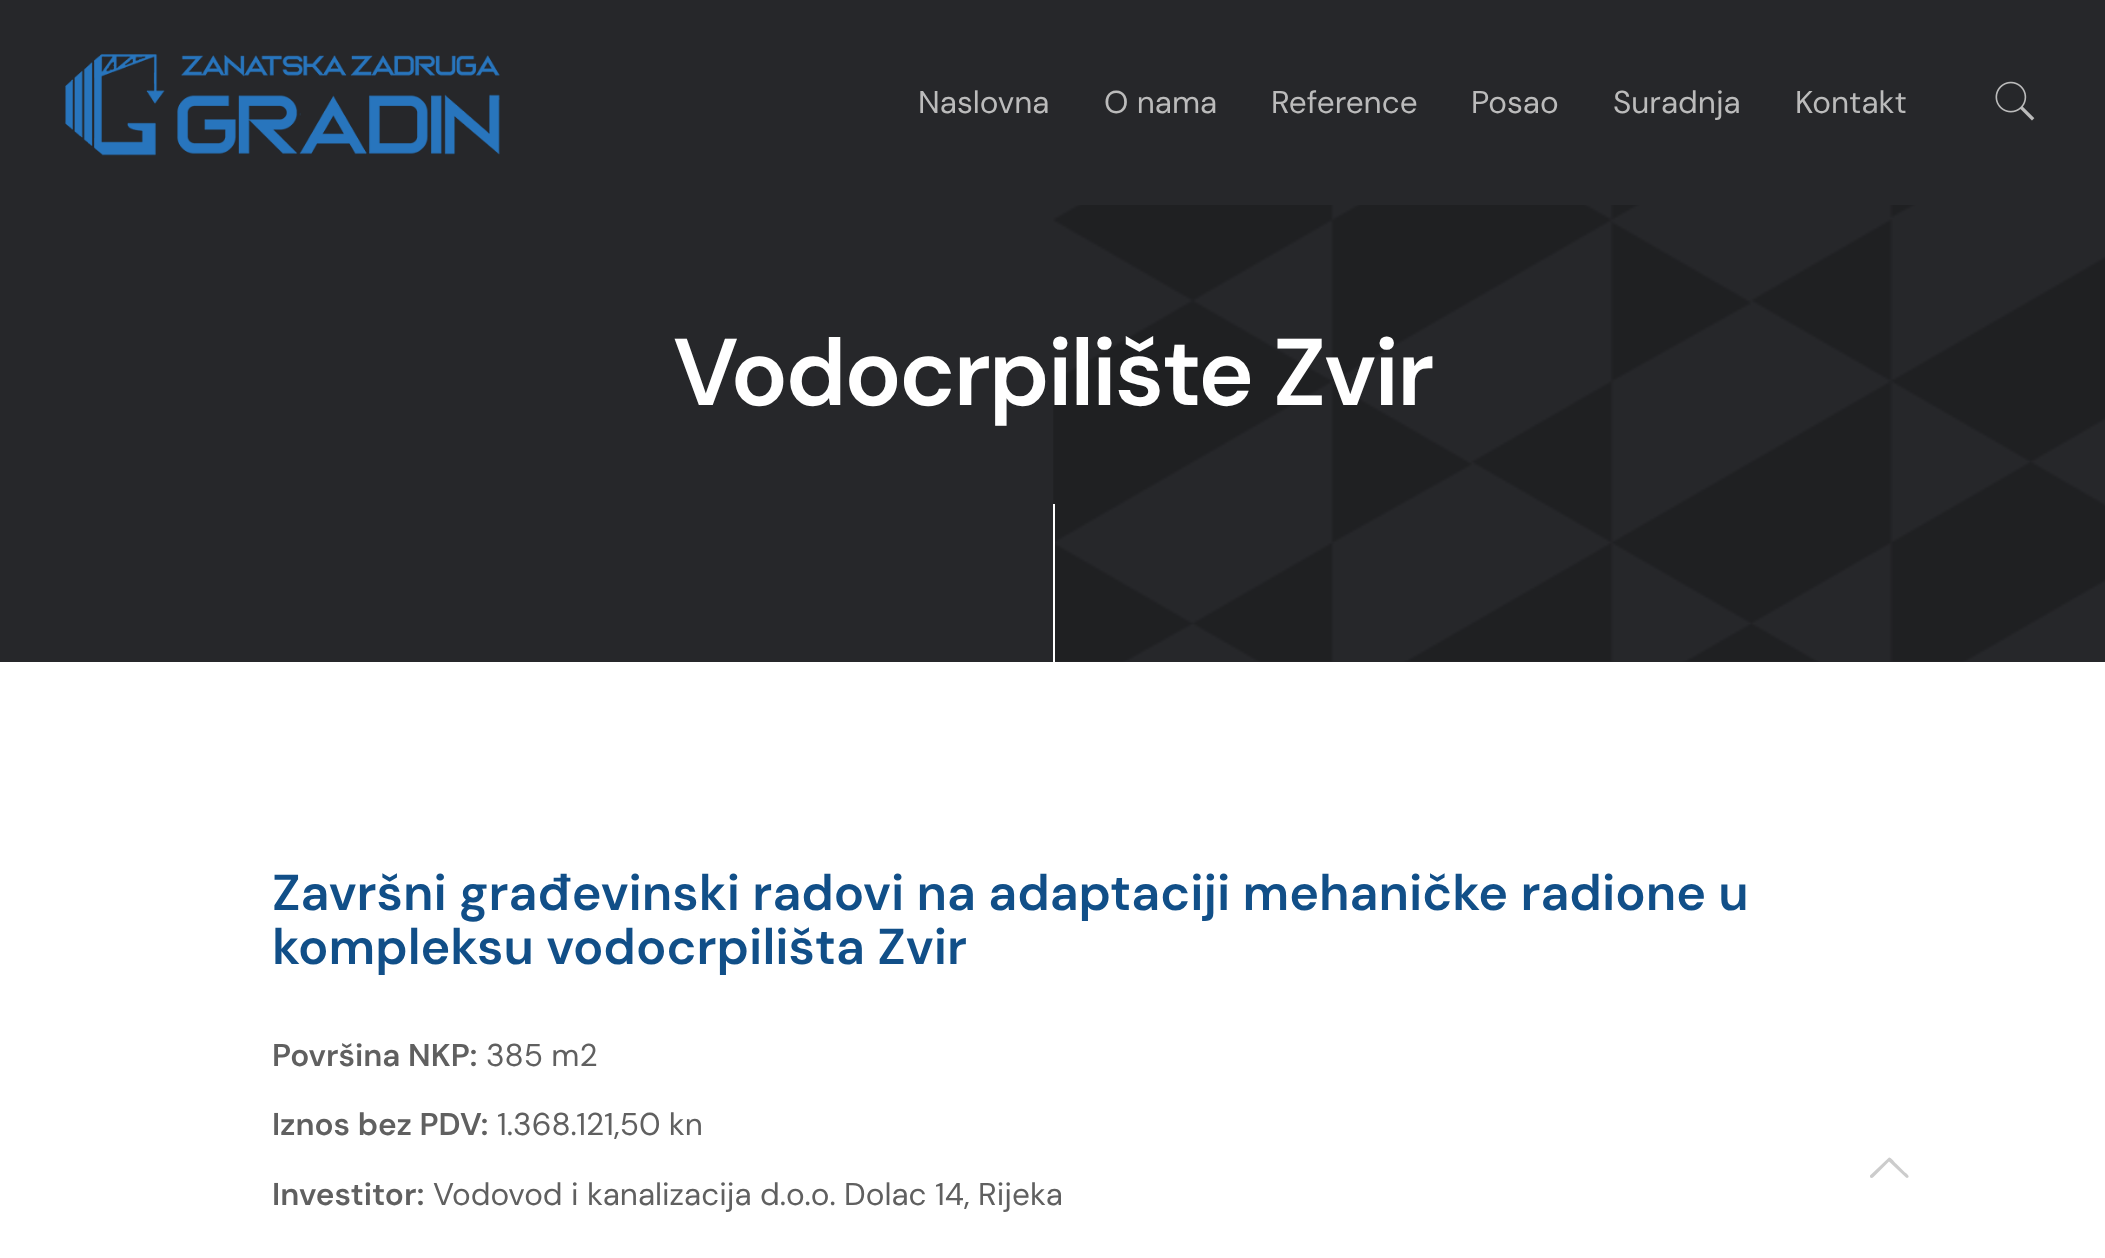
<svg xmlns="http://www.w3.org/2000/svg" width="2105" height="1258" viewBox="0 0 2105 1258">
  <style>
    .t1 { font: 31.5px DM Sans; fill: #bbb; }
    .t2 { font: 600 94.5px DM Sans; letter-spacing: -2.25px; fill: #fff; }
    .t3 { font: 600 50.4px DM Sans; fill: #114f88; }
    .t4 { font: 600 31.5px DM Sans; fill: #606060; }
    .t5 { font: 31.5px DM Sans; fill: #606060; }
  </style>
  <rect width="100%" height="100%" fill="#fff"/>
  <rect x="0" y="0" width="2105" height="662" fill="#26272a"/>
  <image x="65" y="54" width="435" height="102" href="images/1.png"/>
  <text x="918" y="113" class="t1">Naslovna</text>
  <text x="1104" y="113" class="t1">O nama</text>
  <text x="1271" y="113" class="t1">Reference</text>
  <text x="1471" y="113" class="t1">Posao</text>
  <text x="1613" y="113" class="t1">Suradnja</text>
  <text x="1795" y="113" class="t1">Kontakt</text>
  <image x="1995" y="81" width="40" height="40" href="images/2.png"/>
  <image x="1053" y="205" width="1052" height="457" href="images/3.png"/>
  <text x="673" y="405" class="t2">Vodocrpilište Zvir</text>
  <rect x="1053" y="504" width="2" height="158" fill="#fff"/>
  <text x="272" y="910" class="t3">Završni građevinski radovi na adaptaciji mehaničke radione u</text>
  <text x="272" y="964" class="t3">kompleksu vodocrpilišta Zvir</text>
  <text x="272" y="1066" class="t4">Površina NKP:</text>
  <text x="486" y="1066" class="t5">385 m2</text>
  <text x="272" y="1135" class="t4">Iznos bez PDV:</text>
  <text x="497" y="1135" class="t5">1.368.121,50 kn</text>
  <text x="272" y="1205" class="t4">Investitor:</text>
  <text x="433" y="1205" class="t5">Vodovod i kanalizacija d.o.o. Dolac 14, Rijeka</text>
  <path d="M1906 1177.5L1889 1161.5L1875.5 1175C1874.5 1176 1871.5 1180 1870 1177V1175.5L1889 1157.5C1890.5 1157 1895.5 1163 1896 1163.5L1905 1172.5C1905.5 1172.5 1911.5 1177 1907 1178Z" fill="#ccc"/>
</svg>
